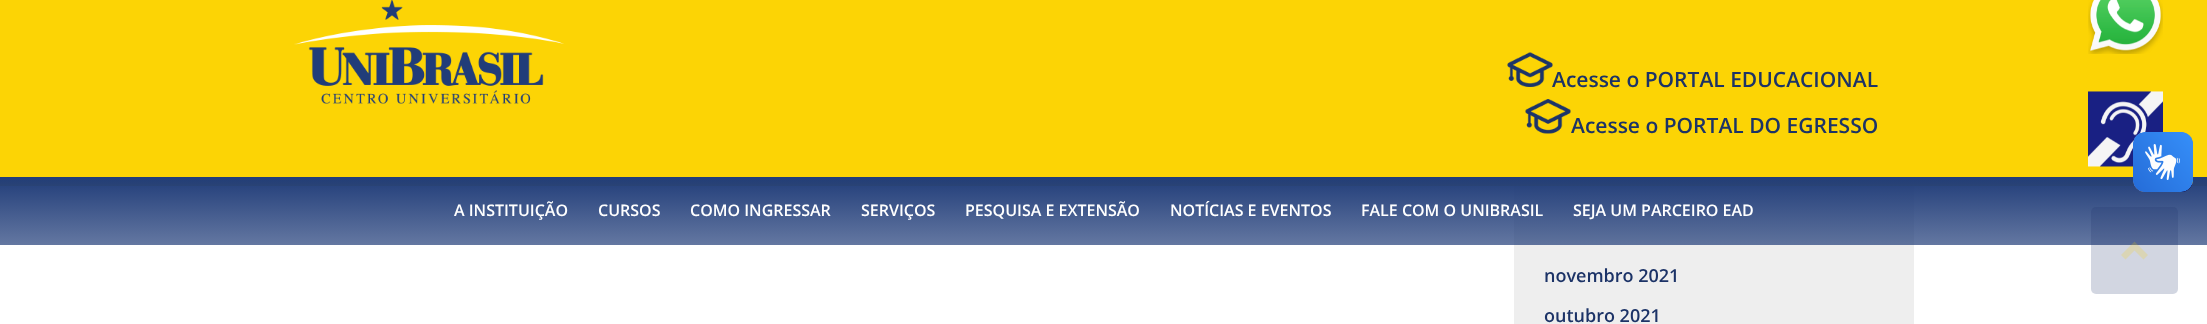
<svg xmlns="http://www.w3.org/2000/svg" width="2207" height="324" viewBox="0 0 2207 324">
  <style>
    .t1 { font: 600 21px Open Sans; fill: #1c3367; }
    .t2 { font: 600 16px Open Sans; fill: #fff; }
    .t3 { font: 600 18px Open Sans; fill: #1c3367; }
  </style>
  <defs>
    <linearGradient id="g1" gradientUnits="userSpaceOnUse" x1="1104" y1="177" x2="1104" y2="245"><stop offset="0" stop-color="#213d79"/><stop offset="1" stop-color="#213d79" stop-opacity="0.7"/></linearGradient>
  </defs>
  <rect width="100%" height="100%" fill="#fff"/>
  <rect x="0" y="0" width="2207" height="186" fill="#fcd405"/>
  <image x="294" y="0" width="270" height="104" href="images/1.png"/>
  <image x="1507" y="52" width="46" height="35" href="images/2.png"/>
  <text x="1552" y="87" class="t1">Acesse o PORTAL EDUCACIONAL</text>
  <image x="1525" y="99" width="46" height="35" href="images/3.png"/>
  <text x="1571" y="133" class="t1">Acesse o PORTAL DO EGRESSO</text>
  <rect x="1514" y="186" width="400" height="138" fill="#eee"/>
  <rect x="0" y="177" width="2207" height="68" fill="url(#g1)"/>
  <text x="454" y="216" class="t2">A INSTITUIÇÃO</text>
  <text x="598" y="216" class="t2">CURSOS</text>
  <text x="690" y="216" class="t2">COMO INGRESSAR</text>
  <text x="861" y="216" class="t2">SERVIÇOS</text>
  <text x="965" y="216" class="t2">PESQUISA E EXTENSÃO</text>
  <text x="1170" y="216" class="t2">NOTÍCIAS E EVENTOS</text>
  <text x="1361" y="216" class="t2">FALE COM O UNIBRASIL</text>
  <text x="1573" y="216" class="t2">SEJA UM PARCEIRO EAD</text>
  <image x="2088" y="0" width="75" height="54" href="images/4.png"/>
  <image x="2088" y="91" width="75" height="76" href="images/5.png"/>
  <text x="1544" y="282" class="t3">novembro 2021</text>
  <text x="1544" y="322" class="t3">outubro 2021</text>
  <image x="2133" y="132" width="60" height="60" href="images/6.png"/>
  <image x="2133" y="132" width="60" height="60" href="images/7.png"/>
  <rect x="2091" y="207" width="87" height="87" rx="5" fill="#1c346933"/>
  <path d="M2148 255L2134.5 241.5L2121 255L2125.5 259.5L2134.5 250.5L2143.5 259.5Z" fill="#fcd40533"/>
</svg>
